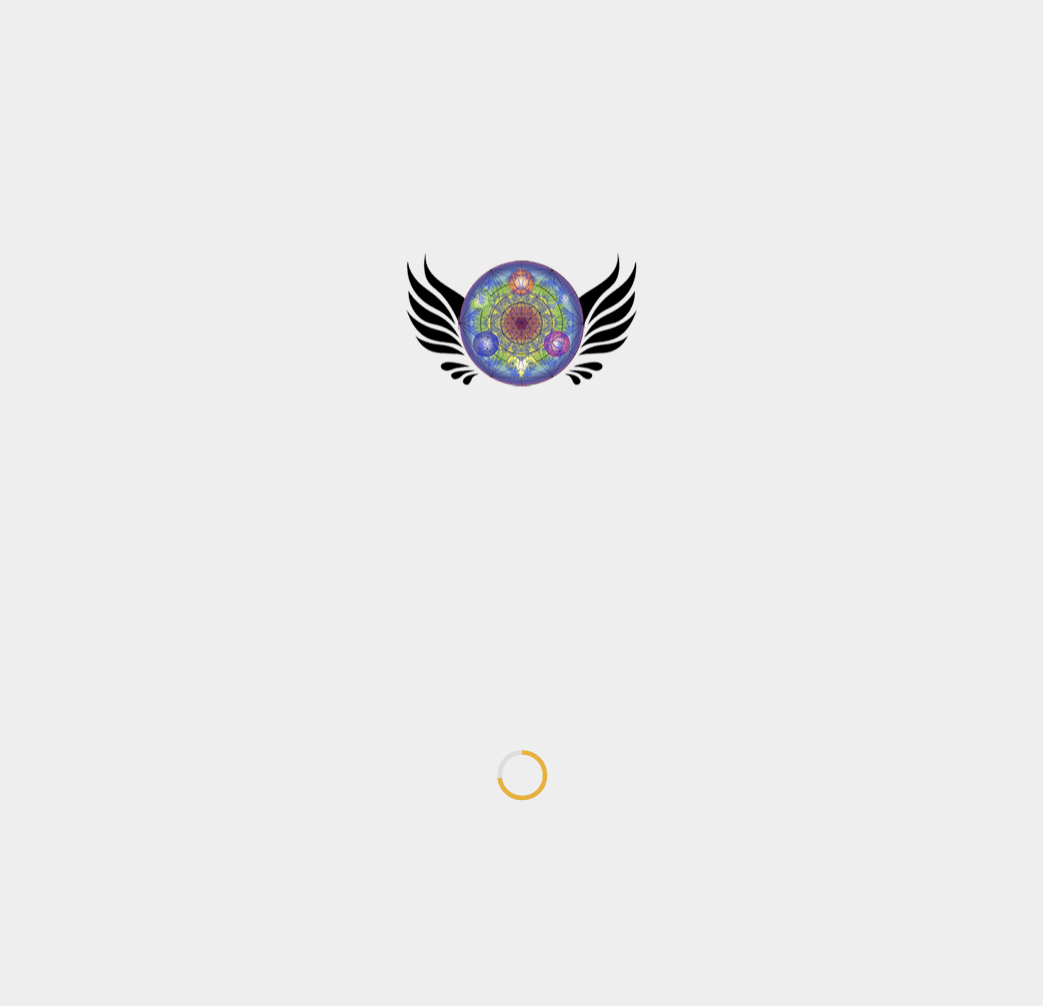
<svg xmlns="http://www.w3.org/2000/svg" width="1043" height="1006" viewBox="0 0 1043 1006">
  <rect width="100%" height="100%" fill="#eee"/>
  <image x="406" y="252" width="231" height="135" href="images/1.png"/>
  <path d="M522 752.5C552.5 752.5 552.5 798 522.5 798C492.5 798 492.5 752.5 522.5 752.5Z" fill="none" stroke="#ddd" stroke-width="4.5"/>
  <path d="M522 752.5C535 752.5 545 762.5 545 775.5C545 788 535 798 522.5 798C510.5 798 501 789.5 499.5 778" fill="none" stroke="#e6b13e" stroke-width="4.5"/>
</svg>
